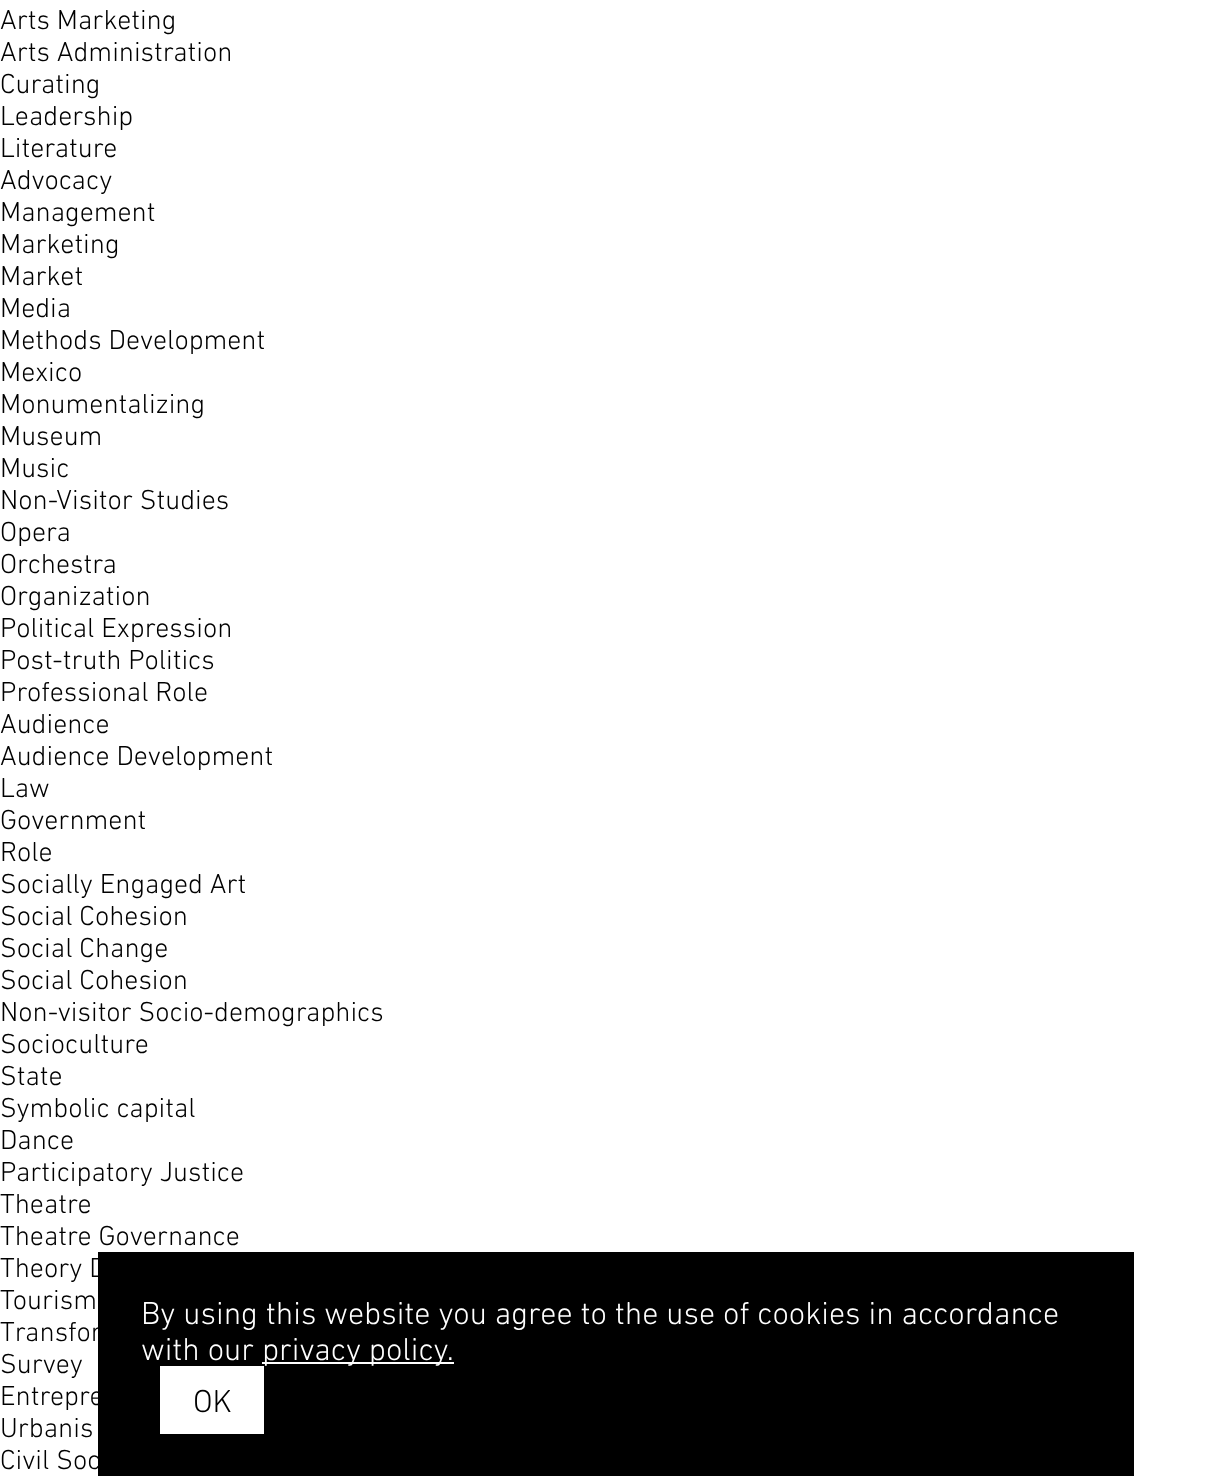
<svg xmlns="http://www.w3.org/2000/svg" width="1232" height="1476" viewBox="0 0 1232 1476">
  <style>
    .t1 { font: 300 28px DIN Next; fill: #000; }
    .t2 { font: 300 32.2px DIN Next; fill: #fff; }
    .t3 { font: 300 32.2px DIN Next; fill: #000; }
  </style>
  <rect width="100%" height="100%" fill="#fff"/>
  <text x="0" y="29" class="t1">Arts Marketing</text>
  <text x="0" y="61" class="t1">Arts Administration</text>
  <text x="0" y="93" class="t1">Curating</text>
  <text x="0" y="125" class="t1">Leadership</text>
  <text x="0" y="157" class="t1">Literature</text>
  <text x="0" y="189" class="t1">Advocacy</text>
  <text x="0" y="221" class="t1">Management</text>
  <text x="0" y="253" class="t1">Marketing</text>
  <text x="0" y="285" class="t1">Market</text>
  <text x="0" y="317" class="t1">Media</text>
  <text x="0" y="349" class="t1">Methods Development</text>
  <text x="0" y="381" class="t1">Mexico</text>
  <text x="0" y="413" class="t1">Monumentalizing</text>
  <text x="0" y="445" class="t1">Museum</text>
  <text x="0" y="477" class="t1">Music</text>
  <text x="0" y="509" class="t1">Non-Visitor Studies</text>
  <text x="0" y="541" class="t1">Opera</text>
  <text x="0" y="573" class="t1">Orchestra</text>
  <text x="0" y="605" class="t1">Organization</text>
  <text x="0" y="637" class="t1">Political Expression</text>
  <text x="0" y="669" class="t1">Post-truth Politics</text>
  <text x="0" y="701" class="t1">Professional Role</text>
  <text x="0" y="733" class="t1">Audience</text>
  <text x="0" y="765" class="t1">Audience Development</text>
  <text x="0" y="797" class="t1">Law</text>
  <text x="0" y="829" class="t1">Government</text>
  <text x="0" y="861" class="t1">Role</text>
  <text x="0" y="893" class="t1">Socially Engaged Art</text>
  <text x="0" y="925" class="t1">Social Cohesion</text>
  <text x="0" y="957" class="t1">Social Change</text>
  <text x="0" y="989" class="t1">Social Cohesion</text>
  <text x="0" y="1021" class="t1">Non-visitor Socio-demographics</text>
  <text x="0" y="1053" class="t1">Socioculture</text>
  <text x="0" y="1085" class="t1">State</text>
  <text x="0" y="1117" class="t1">Symbolic capital</text>
  <text x="0" y="1149" class="t1">Dance</text>
  <text x="0" y="1181" class="t1">Participatory Justice</text>
  <text x="0" y="1213" class="t1">Theatre</text>
  <text x="0" y="1245" class="t1">Theatre Governance</text>
  <text x="0" y="1277" class="t1">Theory D</text>
  <text x="0" y="1309" class="t1">Tourism</text>
  <text x="0" y="1341" class="t1">Transfor</text>
  <text x="0" y="1373" class="t1">Survey</text>
  <text x="0" y="1405" class="t1">Entrepre</text>
  <text x="0" y="1437" class="t1">Urbanis</text>
  <text x="0" y="1469" class="t1">Civil Soc</text>
  <rect x="98" y="1252" width="1036" height="224" fill="#000"/>
  <text x="141" y="1324" class="t2">By using this website you agree to the use of cookies in accordance</text>
  <text x="141" y="1360" class="t2">with our</text>
  <rect x="262" y="1362" width="192" height="2" fill="#fff"/>
  <text x="262" y="1360" class="t2">privacy policy.</text>
  <rect x="160" y="1366" width="104" height="68" fill="#fff"/>
  <text x="193" y="1412" class="t3">OK</text>
</svg>
